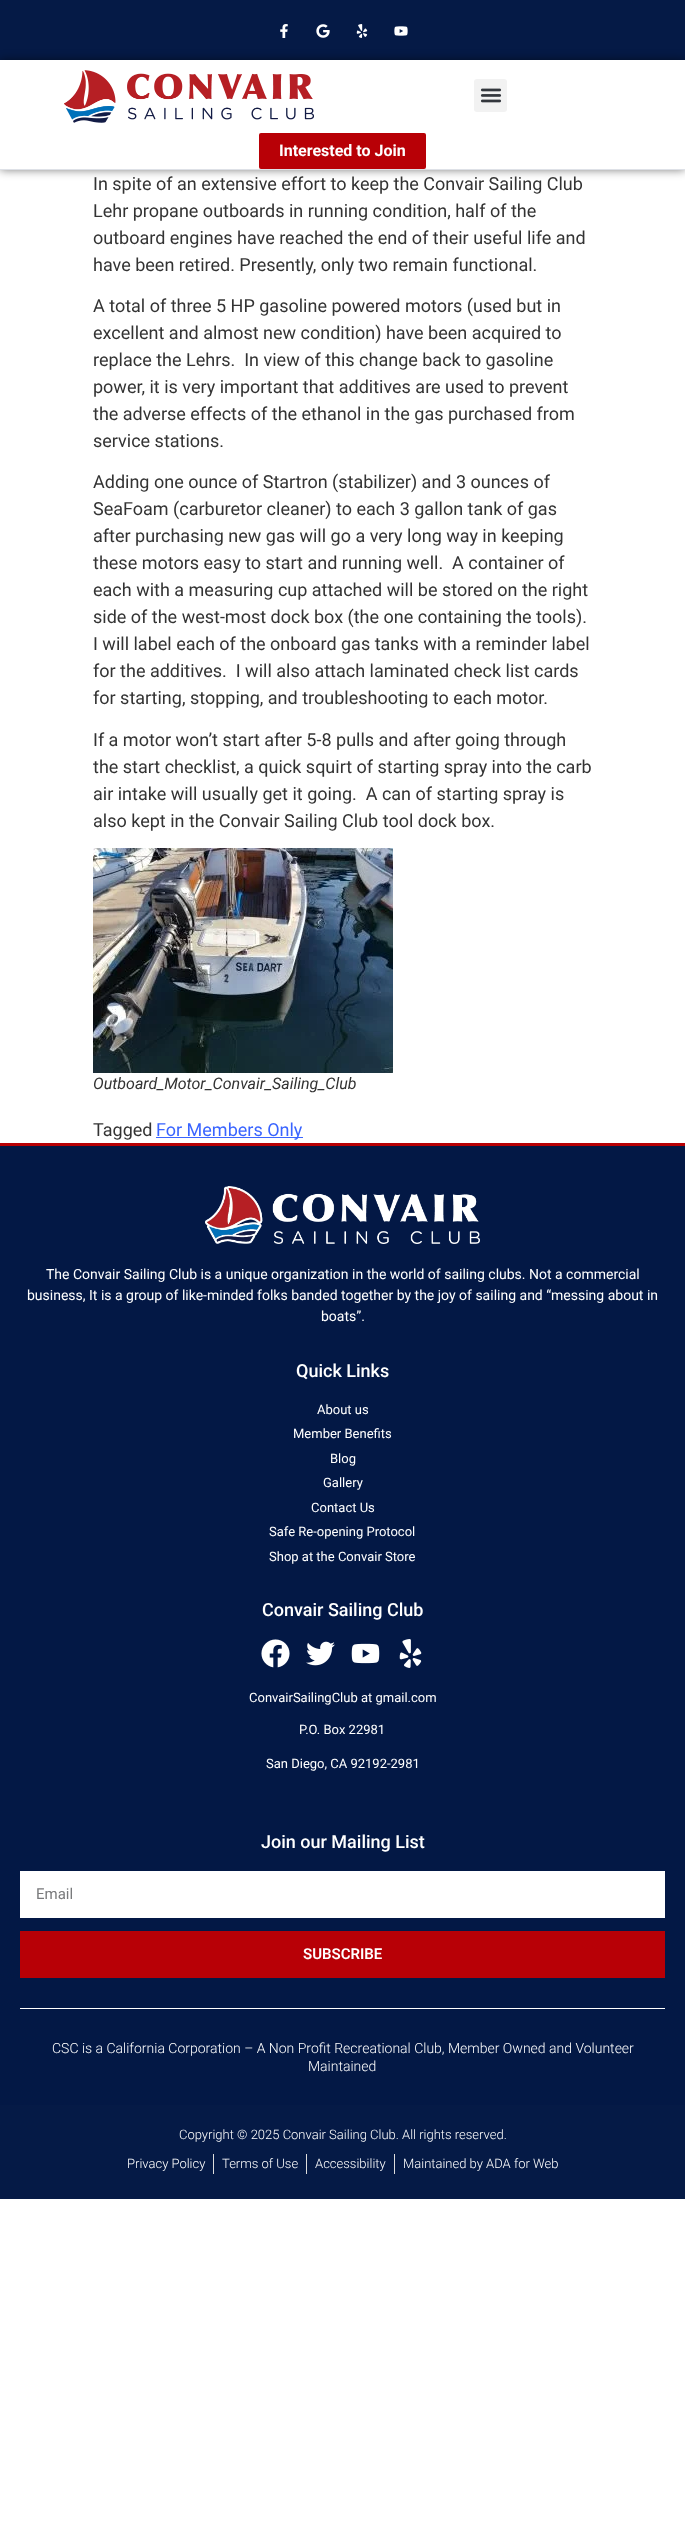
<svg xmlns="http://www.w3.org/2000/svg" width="685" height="2529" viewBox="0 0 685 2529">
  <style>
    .t1 { font: bold 16px Roboto; fill: #fff; }
    .t2 { font: 18px Roboto; fill: #333; }
    .t3 { font: italic 16px Roboto; fill: #333; }
    .t4 { font: 18px Roboto; fill: #3964ff; }
    .t5 { font: 14px Roboto; fill: #fff; }
    .t6 { font: 500 18px Roboto; fill: #fff; }
    .t7 { font: 13px Roboto; fill: #fff; }
    .t8 { font: 15px Roboto; fill: #797a7c; }
    .t9 { font: 600 15px Roboto; fill: #fff; }
    .t10 { font: 300 14px Roboto; fill: #fff; }
    .t11 { font: 300 13px Roboto; fill: #fff; }
  </style>
  <defs>
    <clipPath id="clip1"><path d="M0 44H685V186H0ZM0 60H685V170H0Z" clip-rule="evenodd"/></clipPath>
  </defs>
  <rect width="100%" height="100%" fill="#fff"/>
  <rect x="0" y="0" width="685" height="60" fill="#051a46"/>
  <image x="280" y="24" width="8" height="14" href="images/1.png"/>
  <image x="316" y="24" width="14" height="14" href="images/2.png"/>
  <image x="356" y="24" width="12" height="14" href="images/3.png"/>
  <image x="394" y="26" width="14" height="10" href="images/4.png"/>
  <g clip-path="url(#clip1)">
    <rect x="0" y="60" width="685" height="110" fill="#00000080" filter="blur(5px)"/>
  </g>
  <rect x="0" y="169" width="685" height="1" fill="#dee1e7"/>
  <image x="64" y="70" width="250" height="53" href="images/5.png"/>
  <rect x="474" y="79" width="33" height="33" rx="3" fill="#f2f2f2"/>
  <image x="480" y="88" width="22" height="15" href="images/6.png"/>
  <rect x="259" y="133" width="167" height="36" rx="2" fill="#b80006"/>
  <text x="279" y="156" class="t1">Interested to Join</text>
  <text x="93" y="190" class="t2">In spite of an extensive effort to keep the Convair Sailing Club</text>
  <text x="93" y="217" class="t2">Lehr propane outboards in running condition, half of the</text>
  <text x="93" y="244" class="t2">outboard engines have reached the end of their useful life and</text>
  <text x="93" y="271" class="t2">have been retired. Presently, only two remain functional.</text>
  <text x="93" y="312" class="t2">A total of three 5 HP gasoline powered motors (used but in</text>
  <text x="93" y="339" class="t2">excellent and almost new condition) have been acquired to</text>
  <text x="93" y="366" class="t2" xml:space="preserve">replace the Lehrs.  In view of this change back to gasoline</text>
  <text x="93" y="393" class="t2">power, it is very important that additives are used to prevent</text>
  <text x="93" y="420" class="t2">the adverse effects of the ethanol in the gas purchased from</text>
  <text x="93" y="447" class="t2">service stations.</text>
  <text x="93" y="488" class="t2">Adding one ounce of Startron (stabilizer) and 3 ounces of</text>
  <text x="93" y="515" class="t2">SeaFoam (carburetor cleaner) to each 3 gallon tank of gas</text>
  <text x="93" y="542" class="t2">after purchasing new gas will go a very long way in keeping</text>
  <text x="93" y="569" class="t2" xml:space="preserve">these motors easy to start and running well.  A container of</text>
  <text x="93" y="596" class="t2">each with a measuring cup attached will be stored on the right</text>
  <text x="93" y="623" class="t2">side of the west-most dock box (the one containing the tools).</text>
  <text x="93" y="650" class="t2">I will label each of the onboard gas tanks with a reminder label</text>
  <text x="93" y="677" class="t2" xml:space="preserve">for the additives.  I will also attach laminated check list cards</text>
  <text x="93" y="704" class="t2">for starting, stopping, and troubleshooting to each motor.</text>
  <text x="93" y="746" class="t2">If a motor won’t start after 5-8 pulls and after going through</text>
  <text x="93" y="773" class="t2">the start checklist, a quick squirt of starting spray into the carb</text>
  <text x="93" y="800" class="t2" xml:space="preserve">air intake will usually get it going.  A can of starting spray is</text>
  <text x="93" y="827" class="t2">also kept in the Convair Sailing Club tool dock box.</text>
  <image x="93" y="848" width="300" height="225" href="images/7.png"/>
  <text x="93" y="1089" class="t3">Outboard_Motor_Convair_Sailing_Club</text>
  <text x="93" y="1136" class="t2">Tagged</text>
  <rect x="156" y="1137" width="147" height="1" fill="#3964ff"/>
  <text x="156" y="1136" class="t4">For Members Only</text>
  <rect x="0" y="1146" width="685" height="959" fill="#031845"/>
  <rect x="0" y="1143" width="685" height="3" fill="#b80004"/>
  <image x="205" y="1186" width="275" height="58" href="images/8.png"/>
  <text x="46" y="1279" class="t5">The Convair Sailing Club is a unique organization in the world of sailing clubs. Not a commercial</text>
  <text x="27" y="1300" class="t5">business, It is a group of like-minded folks banded together by the joy of sailing and “messing about in</text>
  <text x="321" y="1321" class="t5">boats”.</text>
  <text x="296" y="1377" class="t6">Quick Links</text>
  <text x="317" y="1414" class="t7">About us</text>
  <text x="293" y="1438" class="t7">Member Benefits</text>
  <text x="330" y="1463" class="t7">Blog</text>
  <text x="323" y="1487" class="t7">Gallery</text>
  <text x="311" y="1512" class="t7">Contact Us</text>
  <text x="269" y="1536" class="t7">Safe Re-opening Protocol</text>
  <text x="269" y="1561" class="t7">Shop at the Convair Store</text>
  <text x="262" y="1616" class="t6">Convair Sailing Club</text>
  <image x="261" y="1639" width="29" height="29" href="images/9.png"/>
  <image x="306" y="1641" width="29" height="25" href="images/10.png"/>
  <image x="351" y="1643" width="29" height="21" href="images/11.png"/>
  <image x="399" y="1639" width="23" height="29" href="images/12.png"/>
  <text x="249" y="1702" class="t7">ConvairSailingClub at gmail.com</text>
  <text x="299" y="1734" class="t7">P.O. Box 22981</text>
  <text x="266" y="1768" class="t7">San Diego, CA 92192-2981</text>
  <text x="261" y="1848" class="t6">Join our Mailing List</text>
  <rect x="20" y="1871" width="645" height="47" fill="#fff"/>
  <text x="36" y="1899" class="t8">Email</text>
  <rect x="20" y="1931" width="645" height="47" fill="#b80006"/>
  <text x="303" y="1959" class="t9">SUBSCRIBE</text>
  <rect x="20" y="2008" width="645" height="1" fill="#fff"/>
  <text x="52" y="2053" class="t10">CSC is a California Corporation – A Non Profit Recreational Club, Member Owned and Volunteer</text>
  <text x="308" y="2071" class="t10">Maintained</text>
  <rect x="0" y="2105" width="685" height="94" fill="#051a46"/>
  <text x="179" y="2139" class="t11">Copyright © 2025 Convair Sailing Club. All rights reserved.</text>
  <text x="127" y="2168" class="t11">Privacy Policy</text>
  <rect x="213" y="2154" width="1" height="20" fill="#ddd"/>
  <text x="222" y="2168" class="t11">Terms of Use</text>
  <rect x="306" y="2154" width="1" height="20" fill="#ddd"/>
  <text x="315" y="2168" class="t11">Accessibility</text>
  <rect x="394" y="2154" width="1" height="20" fill="#ddd"/>
  <text x="403" y="2168" class="t11">Maintained by ADA for Web</text>
</svg>
